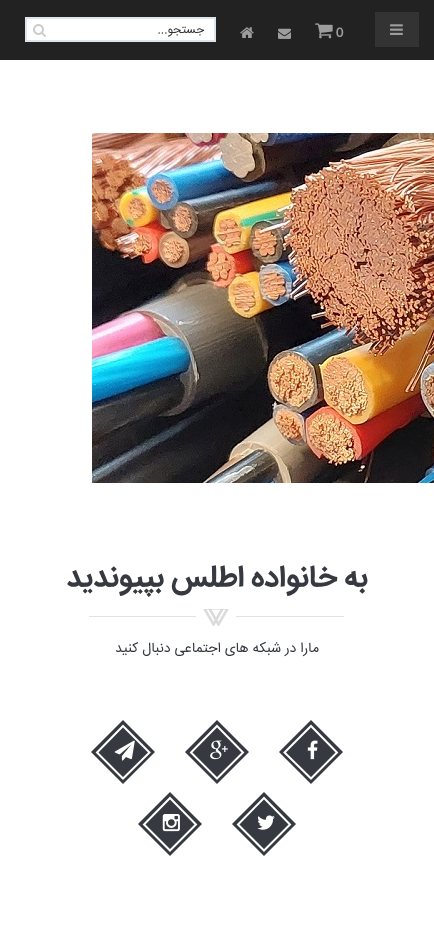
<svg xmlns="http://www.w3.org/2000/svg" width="434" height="925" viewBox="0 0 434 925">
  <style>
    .t1 { font: bold 13px Lato; fill: #9d9d9d; }
    .t2 { font: 12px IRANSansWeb; direction: rtl; fill: #333; }
    .t3 { font: bold 30px IRANSansWeb; direction: rtl; fill: #363940; }
    .t4 { font: 14px IRANSansWeb; direction: rtl; fill: #363940; }
  </style>
  <rect width="100%" height="100%" fill="#fff"/>
  <rect x="0" y="0" width="434" height="60" fill="#222"/>
  <rect x="375" y="12" width="44" height="35" fill="#333"/>
  <image x="390" y="24" width="13" height="11" href="images/1.png"/>
  <text x="336" y="37" class="t1">0</text>
  <image x="315" y="23" width="18" height="16" href="images/2.png"/>
  <image x="278" y="28" width="13" height="11" href="images/3.png"/>
  <image x="240" y="27" width="14" height="11" href="images/4.png"/>
  <rect x="26" y="18" width="189" height="23" fill="#fff" stroke="#dce4ec" stroke-width="2"/>
  <text x="204" y="33" class="t2">جستجو...</text>
  <image x="33" y="24" width="13" height="13" href="images/5.png"/>
  <image x="92" y="133" width="342" height="350" href="images/6.png"/>
  <text x="368" y="586" class="t3">به خانواده اطلس بپیوندید</text>
  <image x="89" y="609" width="255" height="17" href="images/7.png"/>
  <text x="319" y="652" class="t4">مارا در شبکه های اجتماعی دنبال کنید</text>
  <path d="M311 720L343 752L311 784L279 752Z" fill="#363940"/>
  <image x="307" y="740" width="11" height="20" href="images/8.png"/>
  <path d="M311 726L337 752.5L311 778.5L284.5 752.5Z" fill="none" stroke="#fff" stroke-width="2"/>
  <path d="M217 720L249 752L217 784L185 752Z" fill="#363940"/>
  <image x="210" y="740" width="18" height="20" href="images/9.png"/>
  <path d="M217 726L243 752.5L217 778.5L191 752.5Z" fill="none" stroke="#fff" stroke-width="2"/>
  <path d="M123 720L155 752L123 784L91 752Z" fill="#363940"/>
  <image x="114" y="740" width="21" height="21" href="images/10.png"/>
  <path d="M123 726L149.5 752.5L123 778.5L97 752.5Z" fill="none" stroke="#fff" stroke-width="2"/>
  <path d="M264 792L296 824L264 856L232 824Z" fill="#363940"/>
  <image x="257" y="815" width="18" height="15" href="images/11.png"/>
  <path d="M264 798L290 824.5L264 850.5L238 824.5Z" fill="none" stroke="#fff" stroke-width="2"/>
  <path d="M170 792L202 824L170 856L138 824Z" fill="#363940"/>
  <image x="162" y="814" width="18" height="18" href="images/12.png"/>
  <path d="M170 798L196 824.5L170 850.5L144 824.5Z" fill="none" stroke="#fff" stroke-width="2"/>
</svg>
